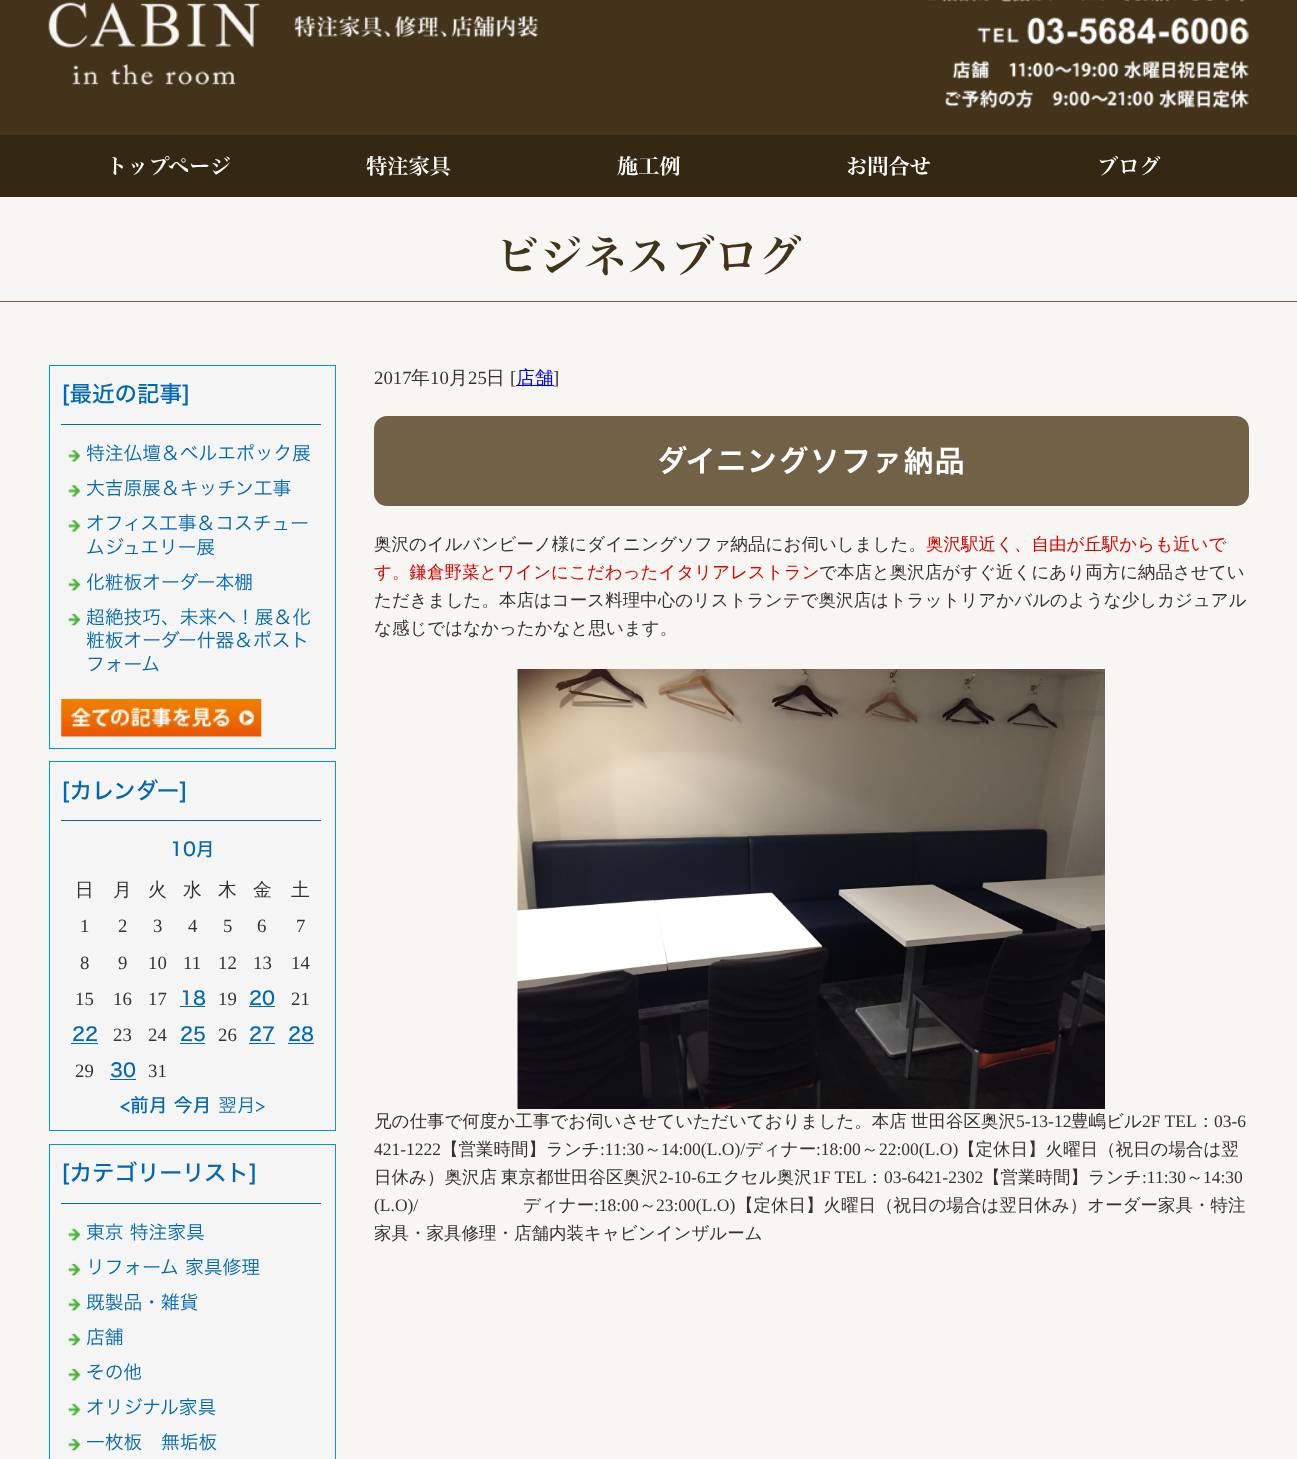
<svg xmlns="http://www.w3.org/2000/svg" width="1297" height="1459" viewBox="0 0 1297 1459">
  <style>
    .t1 { font: 600 21.25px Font; fill: #fff; }
    .t2 { font: 600 43.75px Font; fill: #42341b; }
    .t3 { font: 500 22.5px Font; fill: #0068b6; }
    .t4 { font: 300 18.75px Font; fill: #0068b6; }
    .t5 { font: 500 18.75px Font; fill: #0068b6; }
    .t6 { font: 500 18.75px WenQuanYi Zen Hei; fill: #333; }
    .t7 { font: 18.75px Liberation Serif; fill: #333; }
    .t8 { font: 500 18.75px WenQuanYi Zen Hei; fill: #00f; }
    .t9 { font: 600 30px 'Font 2'; letter-spacing: 1.25px; fill: #fff; }
    .t10 { font: 500 17.5px WenQuanYi Zen Hei; fill: #333; }
    .t11 { font: 500 17.5px WenQuanYi Zen Hei; fill: #d00; }
    .t12 { font: 17.5px Liberation Serif; fill: #333; }
  </style>
  <rect width="100%" height="100%" fill="#42331a"/>
  <image x="48" y="0" width="1201" height="108" href="images/1.png"/>
  <rect x="0" y="135" width="1297" height="62" fill="#342812"/>
  <text x="106" y="174" class="t1">トップページ</text>
  <text x="366" y="174" class="t1">特注家具</text>
  <text x="617" y="174" class="t1">施工例</text>
  <text x="846" y="174" class="t1">お問合せ</text>
  <text x="1097" y="174" class="t1">ブログ</text>
  <rect x="0" y="197" width="1297" height="1262" fill="#f8f6f3"/>
  <rect x="0" y="301" width="1297" height="1" fill="#716047"/>
  <text x="496" y="272" class="t2">ビジネスブログ</text>
  <rect x="49.5" y="365.5" width="286" height="383" fill="#f5f5f5" stroke="#0099d9"/>
  <text x="61" y="402" class="t3">[最近の記事]</text>
  <rect x="61" y="424" width="260" height="1" fill="#0068b6"/>
  <image x="68" y="450" width="13" height="12" href="images/2.png"/>
  <text x="86" y="460" class="t4">特注仏壇＆ベルエポック展</text>
  <image x="68" y="485" width="13" height="12" href="images/2.png"/>
  <text x="86" y="495" class="t4">大吉原展＆キッチン工事</text>
  <image x="68" y="520" width="13" height="12" href="images/2.png"/>
  <text x="86" y="530" class="t4">オフィス工事＆コスチュー</text>
  <text x="86" y="554" class="t4">ムジュエリー展</text>
  <image x="68" y="578" width="13" height="13" href="images/3.png"/>
  <text x="86" y="589" class="t4">化粧板オーダー本棚</text>
  <image x="68" y="613" width="13" height="13" href="images/3.png"/>
  <text x="86" y="624" class="t4">超絶技巧、未来へ！展＆化</text>
  <text x="86" y="647" class="t4">粧板オーダー什器＆ポスト</text>
  <text x="86" y="671" class="t4">フォーム</text>
  <image x="61" y="699" width="201" height="38" href="images/4.png"/>
  <rect x="49.5" y="761.5" width="286" height="369" fill="#f5f5f5" stroke="#0099d9"/>
  <text x="61" y="799" class="t3">[カレンダー]</text>
  <rect x="61" y="820" width="260" height="1" fill="#0068b6"/>
  <text x="170" y="856" class="t5">10月</text>
  <text x="75" y="896" class="t6">日</text>
  <text x="113" y="896" class="t6">月</text>
  <text x="148" y="896" class="t6">火</text>
  <text x="183" y="896" class="t6">水</text>
  <text x="218" y="896" class="t6">木</text>
  <text x="253" y="896" class="t6">金</text>
  <text x="291" y="896" class="t6">土</text>
  <text x="80" y="932" class="t7">1</text>
  <text x="118" y="932" class="t7">2</text>
  <text x="153" y="932" class="t7">3</text>
  <text x="188" y="932" class="t7">4</text>
  <text x="223" y="932" class="t7">5</text>
  <text x="257" y="932" class="t7">6</text>
  <text x="296" y="932" class="t7">7</text>
  <text x="80" y="969" class="t7">8</text>
  <text x="118" y="969" class="t7">9</text>
  <text x="148" y="969" class="t7">10</text>
  <text x="183" y="969" class="t7">11</text>
  <text x="218" y="969" class="t7">12</text>
  <text x="253" y="969" class="t7">13</text>
  <text x="291" y="969" class="t7">14</text>
  <text x="75" y="1005" class="t7">15</text>
  <text x="113" y="1005" class="t7">16</text>
  <text x="148" y="1005" class="t7">17</text>
  <text x="180" y="1005" class="t5">18</text>
  <rect x="180" y="1006" width="25" height="1" fill="#0068b6"/>
  <text x="218" y="1005" class="t7">19</text>
  <text x="249" y="1005" class="t5">20</text>
  <rect x="249" y="1006" width="26" height="1" fill="#0068b6"/>
  <text x="291" y="1005" class="t7">21</text>
  <text x="72" y="1041" class="t5">22</text>
  <rect x="71" y="1043" width="27" height="1" fill="#0068b6"/>
  <text x="113" y="1041" class="t7">23</text>
  <text x="148" y="1041" class="t7">24</text>
  <text x="180" y="1041" class="t5">25</text>
  <rect x="180" y="1043" width="25" height="1" fill="#0068b6"/>
  <text x="218" y="1041" class="t7">26</text>
  <text x="249" y="1041" class="t5">27</text>
  <rect x="249" y="1043" width="26" height="1" fill="#0068b6"/>
  <text x="288" y="1041" class="t5">28</text>
  <rect x="288" y="1043" width="26" height="1" fill="#0068b6"/>
  <text x="75" y="1077" class="t7">29</text>
  <text x="110" y="1077" class="t5">30</text>
  <rect x="110" y="1079" width="26" height="1" fill="#0068b6"/>
  <text x="148" y="1077" class="t7">31</text>
  <text x="120" y="1112" class="t5">&lt;前月 今月</text>
  <text x="218" y="1112" class="t4">翌月&gt;</text>
  <rect x="49.5" y="1144.5" width="286" height="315" fill="#f5f5f5" stroke="#0099d9"/>
  <text x="61" y="1181" class="t3">[カテゴリーリスト]</text>
  <rect x="61" y="1203" width="260" height="1" fill="#0068b6"/>
  <image x="68" y="1228" width="13" height="13" href="images/3.png"/>
  <text x="86" y="1239" class="t4">東京 特注家具</text>
  <image x="68" y="1263" width="13" height="13" href="images/3.png"/>
  <text x="86" y="1274" class="t4">リフォーム 家具修理</text>
  <image x="68" y="1298" width="13" height="13" href="images/3.png"/>
  <text x="86" y="1309" class="t4">既製品・雑貨</text>
  <image x="68" y="1333" width="13" height="13" href="images/3.png"/>
  <text x="86" y="1344" class="t4">店舗</text>
  <image x="68" y="1368" width="13" height="13" href="images/3.png"/>
  <text x="86" y="1379" class="t4">その他</text>
  <image x="68" y="1403" width="13" height="13" href="images/3.png"/>
  <text x="86" y="1414" class="t4">オリジナル家具</text>
  <image x="68" y="1438" width="13" height="13" href="images/3.png"/>
  <text x="86" y="1449" class="t4">一枚板　無垢板</text>
  <text x="374" y="384" class="t7">2017</text>
  <text x="411" y="384" class="t6">年</text>
  <text x="430" y="384" class="t7">10</text>
  <text x="449" y="384" class="t6">月</text>
  <text x="468" y="384" class="t7">25</text>
  <text x="486" y="384" class="t6">日</text>
  <text x="510" y="384" class="t7">[</text>
  <rect x="516" y="385" width="38" height="1" fill="#00f"/>
  <text x="516" y="384" class="t8">店舗</text>
  <text x="553" y="384" class="t7">]</text>
  <rect x="374" y="416" width="875" height="90" rx="13" fill="#716147"/>
  <text x="657" y="472" class="t9">ダイニングソファ納品</text>
  <text x="374" y="550" class="t10">奥沢のイルバンビーノ様にダイニングソファ納品にお伺いしました。</text>
  <text x="926" y="550" class="t11">奥沢駅近く、自由が丘駅からも近いで</text>
  <text x="374" y="578" class="t11">す。鎌倉野菜とワインにこだわったイタリアレストラン</text>
  <text x="819" y="578" class="t10">で本店と奥沢店がすぐ近くにあり両方に納品させてい</text>
  <text x="374" y="606" class="t10">ただきました。本店はコース料理中心のリストランテで奥沢店はトラットリアかバルのような少しカジュアル</text>
  <text x="374" y="634" class="t10">な感じではなかったかなと思います。</text>
  <image x="517" y="669" width="588" height="440" href="images/5.png"/>
  <text x="374" y="1127" class="t10">兄の仕事で何度か工事でお伺いさせていただいておりました。本店</text>
  <text x="911" y="1127" class="t10">世田谷区奥沢</text>
  <text x="1016" y="1127" class="t12">5-13-12</text>
  <text x="1071" y="1127" class="t10">豊嶋ビル</text>
  <text x="1142" y="1127" class="t12">2F TEL</text>
  <text x="1197" y="1127" class="t10">：</text>
  <text x="1214" y="1127" class="t12">03-6</text>
  <text x="374" y="1155" class="t12">421-1222</text>
  <text x="441" y="1155" class="t10">【営業時間】ランチ</text>
  <text x="600" y="1155" class="t12">:11:30</text>
  <text x="644" y="1155" class="t10">～</text>
  <text x="661" y="1155" class="t12">14:00(L.O)/</text>
  <text x="745" y="1155" class="t10">ディナー</text>
  <text x="816" y="1155" class="t12">:18:00</text>
  <text x="861" y="1155" class="t10">～</text>
  <text x="879" y="1155" class="t12">22:00(L.O)</text>
  <text x="958" y="1155" class="t10">【定休日】火曜日（祝日の場合は翌</text>
  <text x="374" y="1183" class="t10">日休み）奥沢店</text>
  <text x="501" y="1183" class="t10">東京都世田谷区奥沢</text>
  <text x="659" y="1183" class="t12">2-10-6</text>
  <text x="705" y="1183" class="t10">エクセル奥沢</text>
  <text x="812" y="1183" class="t12">1F TEL</text>
  <text x="866" y="1183" class="t10">：</text>
  <text x="884" y="1183" class="t12">03-6421-2302</text>
  <text x="983" y="1183" class="t10">【営業時間】ランチ</text>
  <text x="1142" y="1183" class="t12">:11:30</text>
  <text x="1186" y="1183" class="t10">～</text>
  <text x="1203" y="1183" class="t12">14:30</text>
  <text x="374" y="1211" class="t12">(L.O)/</text>
  <text x="523" y="1211" class="t10">ディナー</text>
  <text x="594" y="1211" class="t12">:18:00</text>
  <text x="639" y="1211" class="t10">～</text>
  <text x="656" y="1211" class="t12">23:00(L.O)</text>
  <text x="736" y="1211" class="t10">【定休日】火曜日（祝日の場合は翌日休み）オーダー家具・特注</text>
  <text x="374" y="1239" class="t10">家具・家具修理・店舗内装キャビンインザルーム</text>
</svg>
